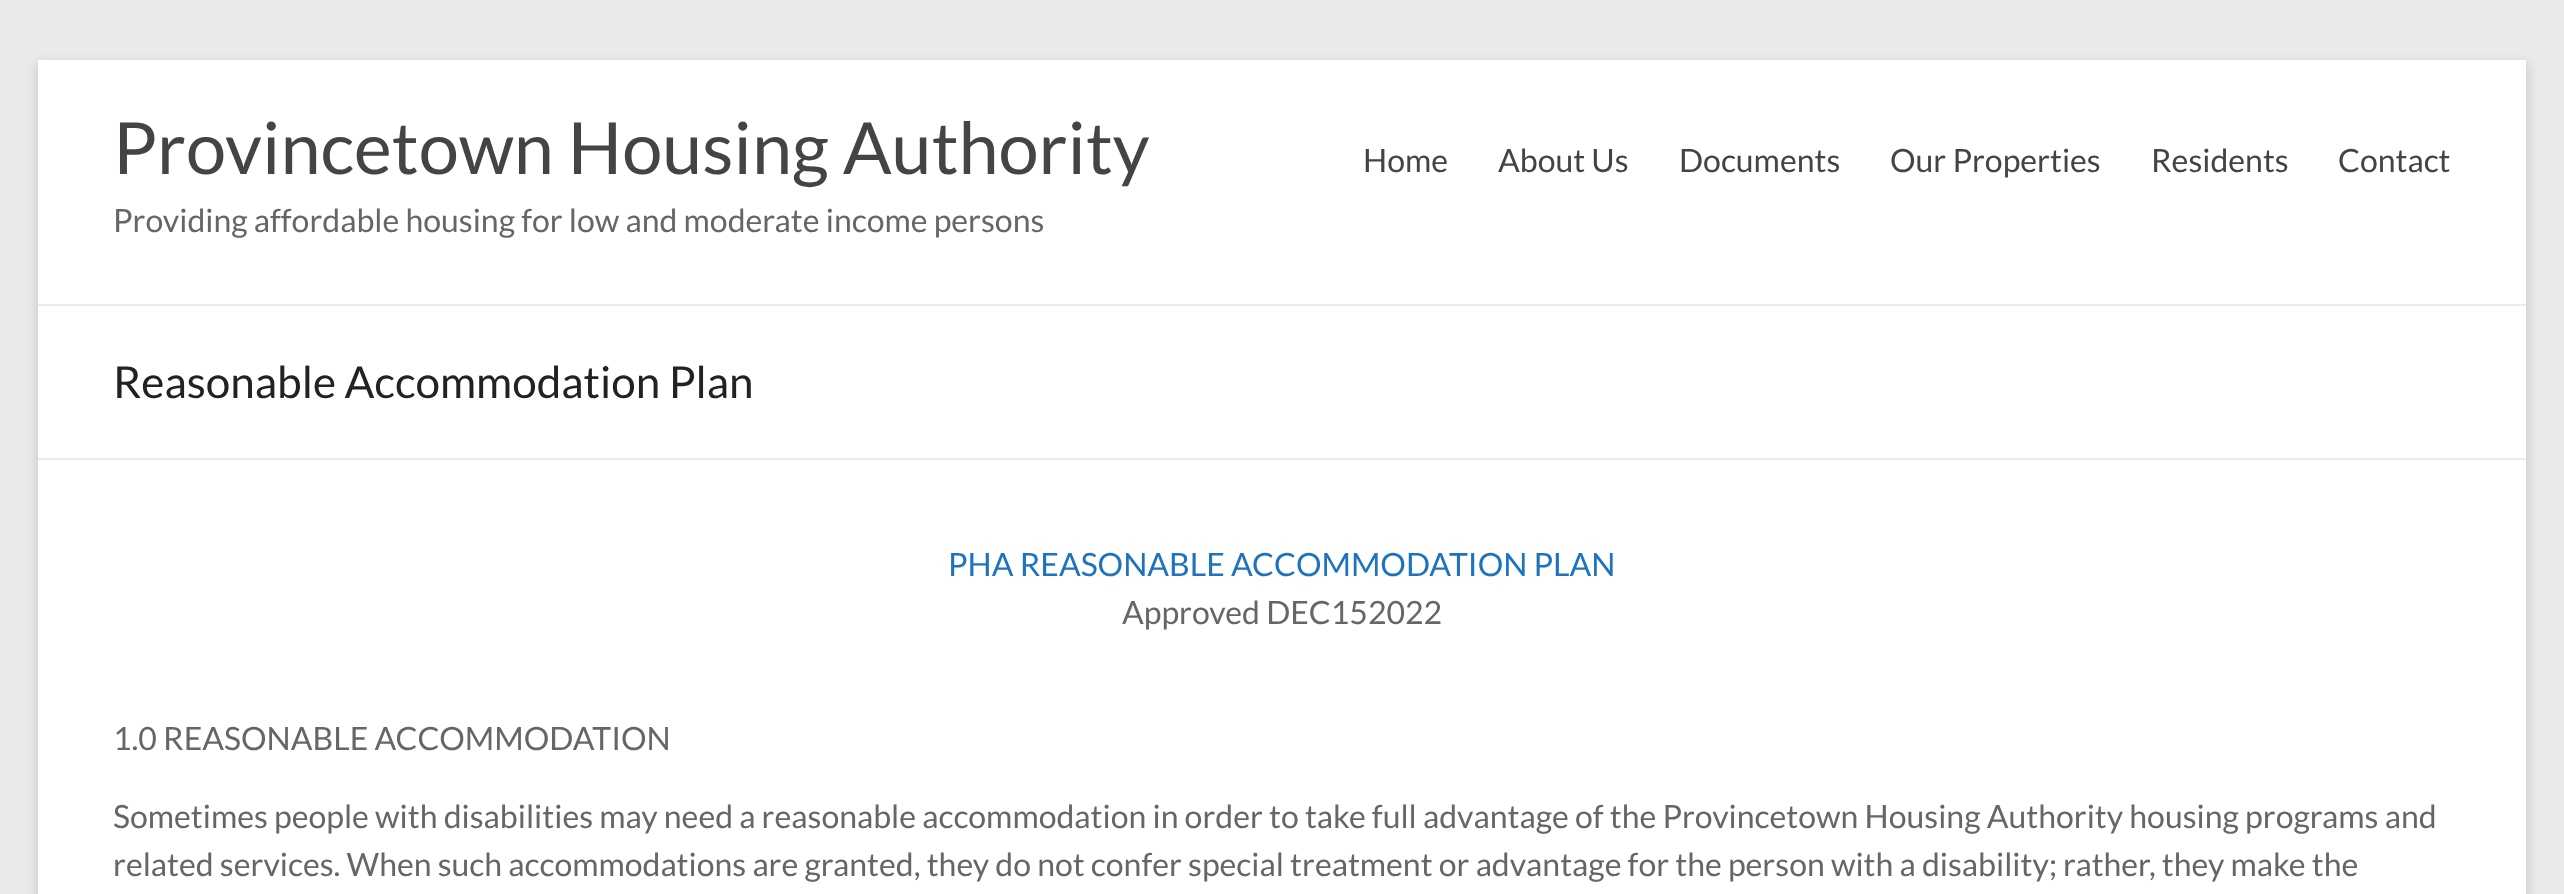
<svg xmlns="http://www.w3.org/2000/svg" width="2564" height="894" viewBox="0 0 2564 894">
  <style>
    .t1 { font: 72px Lato; fill: #444; }
    .t2 { font: 32px Lato; fill: #666; }
    .t3 { font: 32px Lato; fill: #444; }
    .t4 { font: 44px Lato; fill: #222; }
    .t5 { font: 32px Lato; fill: #1e73be; }
  </style>
  <rect width="100%" height="100%" fill="#eaeaea"/>
  <rect x="38" y="64" width="2488" height="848" fill="#6464644d" filter="blur(6px)"/>
  <rect x="38" y="60" width="2488" height="834" fill="#fff"/>
  <rect x="38" y="304" width="2488" height="2" fill="#eaeaea"/>
  <text x="113" y="174" class="t1">Provincetown Housing Authority</text>
  <text x="113" y="232" class="t2">Providing affordable housing for low and moderate income persons</text>
  <text x="1363" y="172" class="t3">Home</text>
  <text x="1498" y="172" class="t3">About Us</text>
  <text x="1679" y="172" class="t3">Documents</text>
  <text x="1890" y="172" class="t3">Our Properties</text>
  <text x="2151" y="172" class="t3">Residents</text>
  <text x="2338" y="172" class="t3">Contact</text>
  <rect x="38" y="458" width="2488" height="2" fill="#eaeaea"/>
  <text x="113" y="398" class="t4">Reasonable Accommodation Plan</text>
  <text x="948" y="576" class="t5">PHA REASONABLE ACCOMMODATION PLAN</text>
  <text x="1122" y="624" class="t2">Approved DEC152022</text>
  <text x="113" y="750" class="t2">1.0 REASONABLE ACCOMMODATION</text>
  <text x="113" y="828" class="t2">Sometimes people with disabilities may need a reasonable accommodation in order to take full advantage of the Provincetown Housing Authority housing programs and</text>
  <text x="113" y="876" class="t2">related services. When such accommodations are granted, they do not confer special treatment or advantage for the person with a disability; rather, they make the</text>
</svg>
